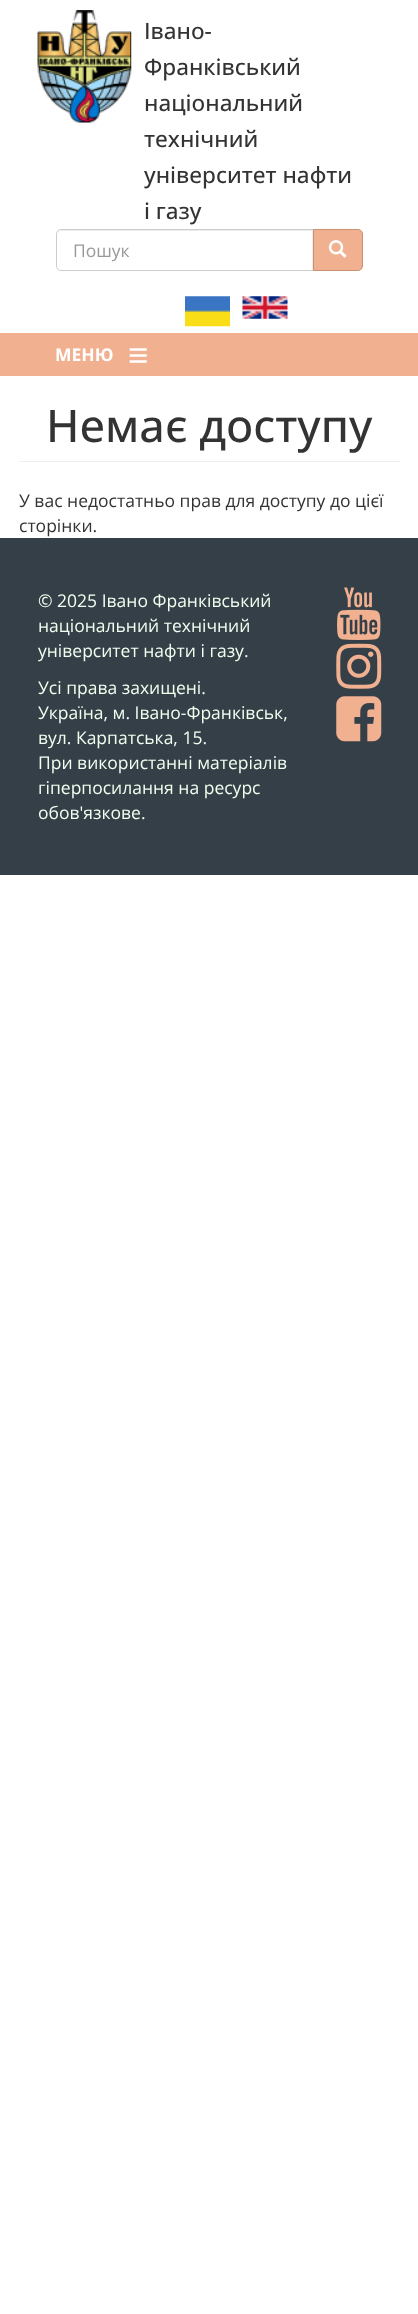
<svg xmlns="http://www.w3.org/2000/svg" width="418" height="2314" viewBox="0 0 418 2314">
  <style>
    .t1 { font: 500 22.5px Open Sans; fill: #333; }
    .t2 { font: 17.5px Open Sans; fill: #999; }
    .t3 { font: bold 17.5px Open Sans; fill: #fff; }
    .t4 { font: bold 35px Liberation Sans; fill: #fff; }
    .t5 { font: 500 45px Open Sans; fill: #333; }
    .t6 { font: 17.5px Open Sans; fill: #333; }
    .t7 { font: 17.5px Open Sans; fill: #f0fff0; }
  </style>
  <rect width="100%" height="100%" fill="#fff"/>
  <image x="37" y="10" width="95" height="113" href="images/1.png"/>
  <text x="144" y="39" class="t1">Івано-</text>
  <text x="144" y="75" class="t1">Франківський</text>
  <text x="144" y="111" class="t1">національний</text>
  <text x="144" y="147" class="t1">технічний</text>
  <text x="144" y="183" class="t1">університет нафти</text>
  <text x="144" y="219" class="t1">і газу</text>
  <path d="M61 231H312V270H313V230H62C60 230 58 232 58 234V235C58 233 59 231 61 231Z" fill="#ececec"/>
  <path d="M61 229.5H313.5V270.5H61C58.5 270.5 56.5 268.5 56.5 266V234C56.5 231.5 58.5 229.5 61 229.5Z" fill="none" stroke="#ccc"/>
  <text x="73" y="257" class="t2">Пошук</text>
  <path d="M313.5 229.5H358C360.5 229.5 362.5 231.5 362.5 234V266C362.5 268.5 360.5 270.5 358 270.5H313.5Z" fill="#f1b090" stroke="#ca9070"/>
  <image x="328" y="240" width="19" height="18" href="images/2.png"/>
  <image x="185" y="296" width="45" height="31" href="images/3.png"/>
  <image x="242" y="296" width="46" height="23" href="images/4.png"/>
  <rect x="0" y="333" width="418" height="43" fill="#f1b090"/>
  <text x="55" y="361" class="t3">МЕНЮ</text>
  <text x="128" y="367" class="t4">≡</text>
  <rect x="19" y="461" width="381" height="1" fill="#eee"/>
  <text x="46" y="442" class="t5">Немає доступу</text>
  <text x="19" y="507" class="t6">У вас недостатньо прав для доступу до цієї</text>
  <text x="19" y="532" class="t6">сторінки.</text>
  <rect x="0" y="538" width="418" height="337" fill="#353f47"/>
  <text x="38" y="607" class="t7">© 2025 Івано Франківський</text>
  <text x="38" y="632" class="t7">національний технічний</text>
  <text x="38" y="657" class="t7">університет нафти і газу.</text>
  <text x="38" y="694" class="t7">Усi права захищенi.</text>
  <text x="38" y="719" class="t7">Україна, м. Івано-Франківськ,</text>
  <text x="38" y="744" class="t7">вул. Карпатська, 15.</text>
  <text x="38" y="769" class="t7">При використанні матеріалів</text>
  <text x="38" y="794" class="t7">гіперпосилання на ресурс</text>
  <text x="38" y="819" class="t7">обов'язкове.</text>
  <image x="337" y="587" width="44" height="53" href="images/5.png"/>
  <image x="336" y="643" width="46" height="46" href="images/6.png"/>
  <image x="336" y="696" width="46" height="46" href="images/7.png"/>
</svg>
